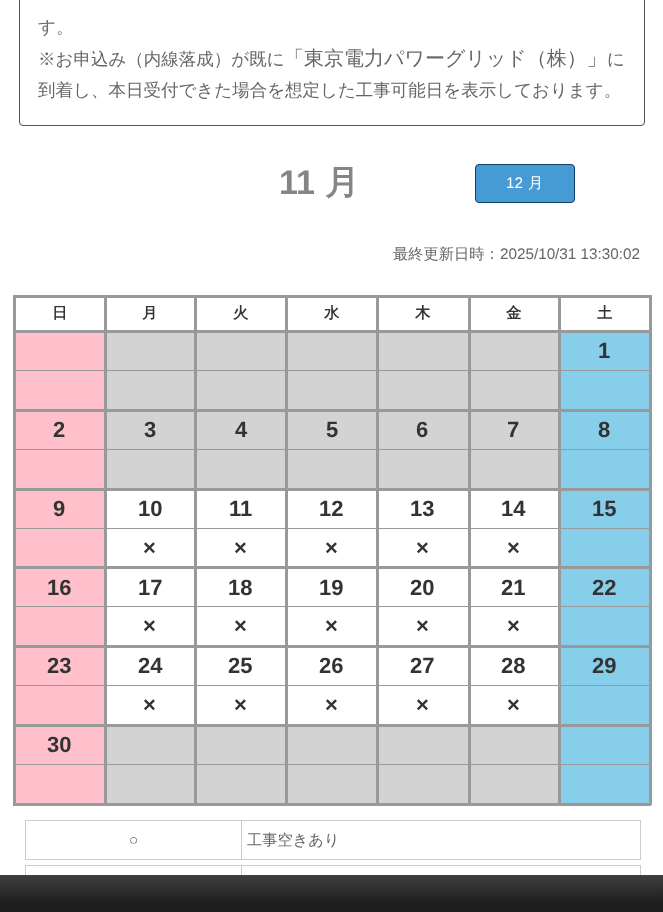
<svg xmlns="http://www.w3.org/2000/svg" width="663" height="912" viewBox="0 0 663 912">
  <style>
    .t1 { font: 500 17.5px WenQuanYi Zen Hei; fill: #666; }
    .t2 { font: 500 20px WenQuanYi Zen Hei; fill: #666; }
    .t3 { font: bold 34px Liberation Sans; fill: #858585; }
    .t4 { font: bold 34px WenQuanYi Zen Hei; fill: #858585; }
    .t5 { font: 15.25px Liberation Sans; fill: #fff; }
    .t6 { font: 500 15.25px WenQuanYi Zen Hei; fill: #fff; }
    .t7 { font: 500 15.25px WenQuanYi Zen Hei; fill: #666; }
    .t8 { font: 15.25px Liberation Sans; fill: #666; }
    .t9 { font: bold 15.25px WenQuanYi Zen Hei; fill: #333; }
    .t10 { font: bold 22px Liberation Sans; fill: #333; }
  </style>
  <defs>
    <linearGradient id="g1" gradientUnits="userSpaceOnUse" x1="332" y1="875" x2="332" y2="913"><stop offset="0" stop-color="#3f3f3f"/><stop offset="0.75" stop-color="#1e1e1e"/></linearGradient>
  </defs>
  <rect width="100%" height="100%" fill="#fff"/>
  <rect x="19.5" y="-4.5" width="625" height="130" rx="3.5" fill="none" stroke="#555"/>
  <text x="38" y="33" class="t1">す。</text>
  <text x="38" y="65" class="t1">※お申込み（内線落成）が既に</text>
  <text x="284" y="65" class="t2">「東京電力パワーグリッド（株）」</text>
  <text x="607" y="65" class="t1">に</text>
  <text x="38" y="96" class="t1">到着し、本日受付できた場合を想定した工事可能日を表示しております。</text>
  <text x="279" y="194" class="t3">11</text>
  <text x="325" y="194" class="t4">月</text>
  <rect x="475.5" y="164.5" width="99" height="38" rx="3.5" fill="#469bd7" stroke="#0f4266"/>
  <text x="506" y="188" class="t5">12</text>
  <text x="528" y="188" class="t6">月</text>
  <text x="393" y="259" class="t7">最終更新日時：</text>
  <text x="500" y="259" class="t8">2025/10/31 13:30:02</text>
  <rect x="558" y="295" width="93" height="3" fill="#999"/>
  <rect x="558" y="330" width="93" height="3" fill="#999"/>
  <rect x="561" y="333" width="88" height="76" fill="#87ceeb"/>
  <rect x="560" y="370" width="89" height="1" fill="#999"/>
  <rect x="558" y="409" width="93" height="3" fill="#999"/>
  <rect x="561" y="412" width="88" height="76" fill="#87ceeb"/>
  <rect x="560" y="449" width="89" height="1" fill="#999"/>
  <rect x="558" y="488" width="93" height="3" fill="#999"/>
  <rect x="561" y="491" width="88" height="75" fill="#87ceeb"/>
  <rect x="560" y="528" width="89" height="1" fill="#999"/>
  <rect x="558" y="566" width="93" height="3" fill="#999"/>
  <rect x="561" y="569" width="88" height="76" fill="#87ceeb"/>
  <rect x="560" y="606" width="89" height="1" fill="#999"/>
  <rect x="558" y="645" width="93" height="3" fill="#999"/>
  <rect x="561" y="648" width="88" height="76" fill="#87ceeb"/>
  <rect x="560" y="685" width="89" height="1" fill="#999"/>
  <rect x="558" y="724" width="93" height="3" fill="#999"/>
  <rect x="649" y="724" width="3" height="81" fill="#999"/>
  <rect x="558" y="803" width="93" height="3" fill="#999"/>
  <rect x="561" y="727" width="88" height="76" fill="#87ceeb"/>
  <rect x="560" y="764" width="89" height="1" fill="#999"/>
  <rect x="558" y="724" width="3" height="81" fill="#999"/>
  <rect x="468" y="724" width="92" height="3" fill="#999"/>
  <rect x="558" y="645" width="3" height="81" fill="#999"/>
  <rect x="468" y="645" width="92" height="3" fill="#999"/>
  <rect x="558" y="566" width="3" height="82" fill="#999"/>
  <rect x="468" y="566" width="92" height="3" fill="#999"/>
  <rect x="558" y="488" width="3" height="81" fill="#999"/>
  <rect x="468" y="488" width="92" height="3" fill="#999"/>
  <rect x="558" y="409" width="3" height="81" fill="#999"/>
  <rect x="468" y="409" width="92" height="3" fill="#999"/>
  <rect x="558" y="330" width="3" height="81" fill="#999"/>
  <rect x="468" y="330" width="92" height="3" fill="#999"/>
  <rect x="558" y="295" width="3" height="38" fill="#999"/>
  <rect x="468" y="295" width="92" height="3" fill="#999"/>
  <rect x="471" y="333" width="87" height="76" fill="#d3d3d3"/>
  <rect x="470" y="370" width="88" height="1" fill="#999"/>
  <rect x="471" y="412" width="87" height="76" fill="#d3d3d3"/>
  <rect x="470" y="449" width="88" height="1" fill="#999"/>
  <rect x="470" y="528" width="88" height="1" fill="#999"/>
  <rect x="470" y="606" width="88" height="1" fill="#999"/>
  <rect x="470" y="685" width="88" height="1" fill="#999"/>
  <rect x="468" y="803" width="92" height="3" fill="#999"/>
  <rect x="471" y="727" width="87" height="76" fill="#d3d3d3"/>
  <rect x="470" y="764" width="88" height="1" fill="#999"/>
  <rect x="468" y="724" width="3" height="81" fill="#999"/>
  <rect x="376" y="724" width="94" height="3" fill="#999"/>
  <rect x="468" y="645" width="3" height="81" fill="#999"/>
  <rect x="376" y="645" width="94" height="3" fill="#999"/>
  <rect x="468" y="566" width="3" height="82" fill="#999"/>
  <rect x="376" y="566" width="94" height="3" fill="#999"/>
  <rect x="468" y="488" width="3" height="81" fill="#999"/>
  <rect x="376" y="488" width="94" height="3" fill="#999"/>
  <rect x="468" y="409" width="3" height="81" fill="#999"/>
  <rect x="376" y="409" width="94" height="3" fill="#999"/>
  <rect x="468" y="330" width="3" height="81" fill="#999"/>
  <rect x="376" y="330" width="94" height="3" fill="#999"/>
  <rect x="468" y="295" width="3" height="38" fill="#999"/>
  <rect x="376" y="295" width="94" height="3" fill="#999"/>
  <rect x="376" y="803" width="94" height="3" fill="#999"/>
  <rect x="376" y="724" width="3" height="81" fill="#999"/>
  <rect x="285" y="724" width="94" height="3" fill="#999"/>
  <rect x="376" y="645" width="3" height="81" fill="#999"/>
  <rect x="285" y="645" width="94" height="3" fill="#999"/>
  <rect x="376" y="566" width="3" height="82" fill="#999"/>
  <rect x="285" y="566" width="94" height="3" fill="#999"/>
  <rect x="376" y="488" width="3" height="81" fill="#999"/>
  <rect x="285" y="488" width="94" height="3" fill="#999"/>
  <rect x="376" y="409" width="3" height="81" fill="#999"/>
  <rect x="285" y="409" width="94" height="3" fill="#999"/>
  <rect x="376" y="330" width="3" height="81" fill="#999"/>
  <rect x="285" y="330" width="94" height="3" fill="#999"/>
  <rect x="376" y="295" width="3" height="38" fill="#999"/>
  <rect x="285" y="295" width="94" height="3" fill="#999"/>
  <rect x="285" y="803" width="94" height="3" fill="#999"/>
  <rect x="285" y="724" width="3" height="81" fill="#999"/>
  <rect x="194" y="724" width="94" height="3" fill="#999"/>
  <rect x="285" y="645" width="3" height="81" fill="#999"/>
  <rect x="194" y="645" width="94" height="3" fill="#999"/>
  <rect x="285" y="566" width="3" height="82" fill="#999"/>
  <rect x="194" y="566" width="94" height="3" fill="#999"/>
  <rect x="285" y="488" width="3" height="81" fill="#999"/>
  <rect x="194" y="488" width="94" height="3" fill="#999"/>
  <rect x="285" y="409" width="3" height="81" fill="#999"/>
  <rect x="194" y="409" width="94" height="3" fill="#999"/>
  <rect x="285" y="330" width="3" height="81" fill="#999"/>
  <rect x="194" y="330" width="94" height="3" fill="#999"/>
  <rect x="285" y="295" width="3" height="38" fill="#999"/>
  <rect x="194" y="295" width="94" height="3" fill="#999"/>
  <rect x="197" y="333" width="88" height="76" fill="#d3d3d3"/>
  <rect x="196" y="370" width="89" height="1" fill="#999"/>
  <rect x="197" y="412" width="88" height="76" fill="#d3d3d3"/>
  <rect x="196" y="449" width="89" height="1" fill="#999"/>
  <rect x="196" y="528" width="89" height="1" fill="#999"/>
  <rect x="196" y="606" width="89" height="1" fill="#999"/>
  <rect x="196" y="685" width="89" height="1" fill="#999"/>
  <rect x="194" y="803" width="94" height="3" fill="#999"/>
  <rect x="197" y="727" width="88" height="76" fill="#d3d3d3"/>
  <rect x="196" y="764" width="89" height="1" fill="#999"/>
  <rect x="194" y="724" width="3" height="81" fill="#999"/>
  <rect x="104" y="724" width="92" height="3" fill="#999"/>
  <rect x="194" y="645" width="3" height="81" fill="#999"/>
  <rect x="104" y="645" width="92" height="3" fill="#999"/>
  <rect x="194" y="566" width="3" height="82" fill="#999"/>
  <rect x="104" y="566" width="92" height="3" fill="#999"/>
  <rect x="194" y="488" width="3" height="81" fill="#999"/>
  <rect x="104" y="488" width="92" height="3" fill="#999"/>
  <rect x="194" y="409" width="3" height="81" fill="#999"/>
  <rect x="104" y="409" width="92" height="3" fill="#999"/>
  <rect x="194" y="330" width="3" height="81" fill="#999"/>
  <rect x="104" y="330" width="92" height="3" fill="#999"/>
  <rect x="194" y="295" width="3" height="38" fill="#999"/>
  <rect x="104" y="295" width="92" height="3" fill="#999"/>
  <rect x="107" y="333" width="87" height="76" fill="#d3d3d3"/>
  <rect x="106" y="370" width="88" height="1" fill="#999"/>
  <rect x="107" y="412" width="87" height="76" fill="#d3d3d3"/>
  <rect x="106" y="449" width="88" height="1" fill="#999"/>
  <rect x="106" y="528" width="88" height="1" fill="#999"/>
  <rect x="106" y="606" width="88" height="1" fill="#999"/>
  <rect x="106" y="685" width="88" height="1" fill="#999"/>
  <rect x="104" y="803" width="92" height="3" fill="#999"/>
  <rect x="107" y="727" width="87" height="76" fill="#d3d3d3"/>
  <rect x="106" y="764" width="88" height="1" fill="#999"/>
  <rect x="104" y="724" width="3" height="81" fill="#999"/>
  <rect x="13" y="724" width="93" height="3" fill="#999"/>
  <rect x="104" y="645" width="3" height="81" fill="#999"/>
  <rect x="13" y="645" width="93" height="3" fill="#999"/>
  <rect x="104" y="566" width="3" height="82" fill="#999"/>
  <rect x="13" y="566" width="93" height="3" fill="#999"/>
  <rect x="104" y="488" width="3" height="81" fill="#999"/>
  <rect x="13" y="488" width="93" height="3" fill="#999"/>
  <rect x="104" y="409" width="3" height="81" fill="#999"/>
  <rect x="13" y="409" width="93" height="3" fill="#999"/>
  <rect x="104" y="330" width="3" height="81" fill="#999"/>
  <rect x="13" y="330" width="93" height="3" fill="#999"/>
  <rect x="104" y="295" width="3" height="38" fill="#999"/>
  <rect x="13" y="295" width="93" height="3" fill="#999"/>
  <rect x="16" y="333" width="88" height="76" fill="#ffc0cb"/>
  <rect x="15" y="370" width="89" height="1" fill="#999"/>
  <rect x="16" y="412" width="88" height="76" fill="#ffc0cb"/>
  <rect x="15" y="449" width="89" height="1" fill="#999"/>
  <rect x="16" y="491" width="88" height="75" fill="#ffc0cb"/>
  <rect x="15" y="528" width="89" height="1" fill="#999"/>
  <rect x="16" y="569" width="88" height="76" fill="#ffc0cb"/>
  <rect x="15" y="606" width="89" height="1" fill="#999"/>
  <rect x="16" y="648" width="88" height="76" fill="#ffc0cb"/>
  <rect x="15" y="685" width="89" height="1" fill="#999"/>
  <rect x="13" y="803" width="93" height="3" fill="#999"/>
  <rect x="16" y="727" width="88" height="76" fill="#ffc0cb"/>
  <rect x="15" y="764" width="89" height="1" fill="#999"/>
  <rect x="13" y="724" width="3" height="81" fill="#999"/>
  <rect x="13" y="645" width="3" height="81" fill="#999"/>
  <rect x="13" y="566" width="3" height="82" fill="#999"/>
  <rect x="13" y="488" width="3" height="81" fill="#999"/>
  <rect x="13" y="409" width="3" height="81" fill="#999"/>
  <rect x="13" y="330" width="3" height="81" fill="#999"/>
  <rect x="13" y="295" width="3" height="38" fill="#999"/>
  <text x="52" y="318" class="t9">日</text>
  <text x="142" y="318" class="t9">月</text>
  <text x="233" y="318" class="t9">火</text>
  <text x="324" y="318" class="t9">水</text>
  <text x="415" y="318" class="t9">木</text>
  <text x="506" y="318" class="t9">金</text>
  <rect x="649" y="645" width="3" height="81" fill="#999"/>
  <rect x="649" y="566" width="3" height="82" fill="#999"/>
  <rect x="649" y="488" width="3" height="81" fill="#999"/>
  <rect x="649" y="409" width="3" height="81" fill="#999"/>
  <rect x="649" y="330" width="3" height="81" fill="#999"/>
  <rect x="649" y="295" width="3" height="38" fill="#999"/>
  <text x="597" y="318" class="t9">土</text>
  <rect x="288" y="333" width="88" height="76" fill="#d3d3d3"/>
  <rect x="288" y="370" width="88" height="1" fill="#999"/>
  <rect x="379" y="333" width="89" height="76" fill="#d3d3d3"/>
  <rect x="379" y="370" width="89" height="1" fill="#999"/>
  <text x="598" y="358" class="t10">1</text>
  <text x="53" y="437" class="t10">2</text>
  <text x="144" y="437" class="t10">3</text>
  <text x="235" y="437" class="t10">4</text>
  <rect x="288" y="412" width="88" height="76" fill="#d3d3d3"/>
  <rect x="288" y="449" width="88" height="1" fill="#999"/>
  <text x="326" y="437" class="t10">5</text>
  <rect x="379" y="412" width="89" height="76" fill="#d3d3d3"/>
  <rect x="379" y="449" width="89" height="1" fill="#999"/>
  <text x="416" y="437" class="t10">6</text>
  <text x="507" y="437" class="t10">7</text>
  <text x="598" y="437" class="t10">8</text>
  <text x="53" y="516" class="t10">9</text>
  <text x="138" y="516" class="t10">10</text>
  <text x="143" y="555" class="t10">×</text>
  <text x="229" y="516" class="t10">11</text>
  <text x="234" y="555" class="t10">×</text>
  <rect x="288" y="528" width="88" height="1" fill="#999"/>
  <text x="319" y="516" class="t10">12</text>
  <text x="325" y="555" class="t10">×</text>
  <rect x="379" y="528" width="89" height="1" fill="#999"/>
  <text x="410" y="516" class="t10">13</text>
  <text x="416" y="555" class="t10">×</text>
  <text x="501" y="516" class="t10">14</text>
  <text x="507" y="555" class="t10">×</text>
  <text x="592" y="516" class="t10">15</text>
  <text x="47" y="595" class="t10">16</text>
  <text x="138" y="595" class="t10">17</text>
  <text x="143" y="633" class="t10">×</text>
  <text x="228" y="595" class="t10">18</text>
  <text x="234" y="633" class="t10">×</text>
  <rect x="288" y="606" width="88" height="1" fill="#999"/>
  <text x="319" y="595" class="t10">19</text>
  <text x="325" y="633" class="t10">×</text>
  <rect x="379" y="606" width="89" height="1" fill="#999"/>
  <text x="410" y="595" class="t10">20</text>
  <text x="416" y="633" class="t10">×</text>
  <text x="501" y="595" class="t10">21</text>
  <text x="507" y="633" class="t10">×</text>
  <text x="592" y="595" class="t10">22</text>
  <text x="47" y="673" class="t10">23</text>
  <text x="138" y="673" class="t10">24</text>
  <text x="143" y="712" class="t10">×</text>
  <text x="228" y="673" class="t10">25</text>
  <text x="234" y="712" class="t10">×</text>
  <rect x="288" y="685" width="88" height="1" fill="#999"/>
  <text x="319" y="673" class="t10">26</text>
  <text x="325" y="712" class="t10">×</text>
  <rect x="379" y="685" width="89" height="1" fill="#999"/>
  <text x="410" y="673" class="t10">27</text>
  <text x="416" y="712" class="t10">×</text>
  <text x="501" y="673" class="t10">28</text>
  <text x="507" y="712" class="t10">×</text>
  <text x="592" y="673" class="t10">29</text>
  <text x="47" y="752" class="t10">30</text>
  <rect x="288" y="727" width="88" height="76" fill="#d3d3d3"/>
  <rect x="288" y="764" width="88" height="1" fill="#999"/>
  <rect x="379" y="727" width="89" height="76" fill="#d3d3d3"/>
  <rect x="379" y="764" width="89" height="1" fill="#999"/>
  <rect x="25.5" y="820.5" width="615" height="39" fill="none" stroke="#ccc"/>
  <rect x="241" y="821" width="1" height="38" fill="#ccc"/>
  <text x="129" y="845" class="t8">○</text>
  <text x="247" y="845" class="t7">工事空きあり</text>
  <rect x="25.5" y="865.5" width="615" height="39" fill="none" stroke="#ccc"/>
  <rect x="241" y="866" width="1" height="9" fill="#ccc"/>
  <rect x="0" y="875" width="663" height="37" fill="url(#g1)"/>
</svg>
